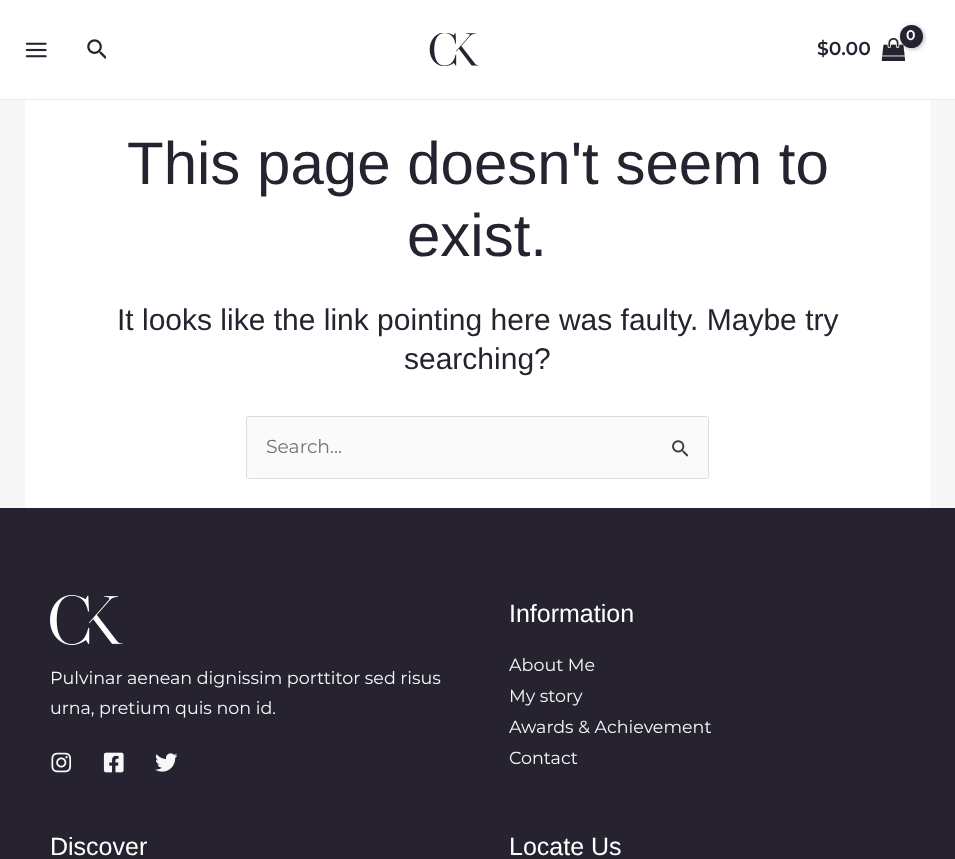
<svg xmlns="http://www.w3.org/2000/svg" width="955" height="859" viewBox="0 0 955 859">
  <style>
    .t1 { font: 600 14px Montserrat; letter-spacing: -1px; fill: #fff; }
    .t2 { font: 600 18.75px Montserrat; fill: #26222f; }
    .t3 { font: 60px Liberation Sans; fill: #26222f; }
    .t4 { font: 30px Liberation Sans; fill: #26222f; }
    .t5 { font: 18.75px Montserrat; fill: #757575; }
    .t6 { font: 17.5px Montserrat; fill: #f7f7f7; }
    .t7 { font: 25px Liberation Sans; fill: #fff; }
  </style>
  <rect width="100%" height="100%" fill="#f7f7f7"/>
  <rect x="0" y="0" width="955" height="99" fill="#fff"/>
  <rect x="0" y="99" width="955" height="1" fill="#eaeaea"/>
  <image x="25" y="42" width="22" height="16" href="images/1.png"/>
  <image x="87" y="39" width="19" height="20" href="images/2.png"/>
  <image x="429" y="33" width="50" height="33" href="images/3.png"/>
  <image x="881" y="38" width="24" height="23" href="images/4.png"/>
  <rect x="901" y="26" width="23" height="23" rx="11.5" fill="#0000004d" filter="blur(2px)"/>
  <circle cx="911.5" cy="36.5" r="11.5" fill="#26222f"/>
  <text x="906" y="40" class="t1">0</text>
  <text x="817" y="55" class="t2">$0.00</text>
  <rect x="25" y="100" width="905" height="408" fill="#fff"/>
  <text x="127" y="184" class="t3">This page doesn't seem to</text>
  <text x="407" y="256" class="t3">exist.</text>
  <text x="117" y="330" class="t4">It looks like the link pointing here was faulty. Maybe try</text>
  <text x="404" y="369" class="t4">searching?</text>
  <rect x="246.5" y="416.5" width="462" height="62" rx="2" fill="#fafafa" stroke="#ddd"/>
  <text x="266" y="453" class="t5">Search...</text>
  <image x="672" y="440" width="16" height="17" href="images/5.png"/>
  <rect x="0" y="508" width="955" height="351" fill="#26222f"/>
  <image x="50" y="595" width="73" height="50" href="images/6.png"/>
  <text x="50" y="684" class="t6">Pulvinar aenean dignissim porttitor sed risus</text>
  <text x="50" y="714" class="t6">urna, pretium quis non id.</text>
  <image x="51" y="752" width="21" height="21" href="images/7.png"/>
  <image x="103" y="752" width="21" height="21" href="images/8.png"/>
  <image x="155" y="753" width="23" height="19" href="images/9.png"/>
  <text x="509" y="622" class="t7">Information</text>
  <text x="509" y="671" class="t6">About Me</text>
  <text x="509" y="702" class="t6">My story</text>
  <text x="509" y="733" class="t6">Awards &amp; Achievement</text>
  <text x="509" y="764" class="t6">Contact</text>
  <text x="50" y="855" class="t7">Discover</text>
  <text x="509" y="855" class="t7">Locate Us</text>
</svg>
